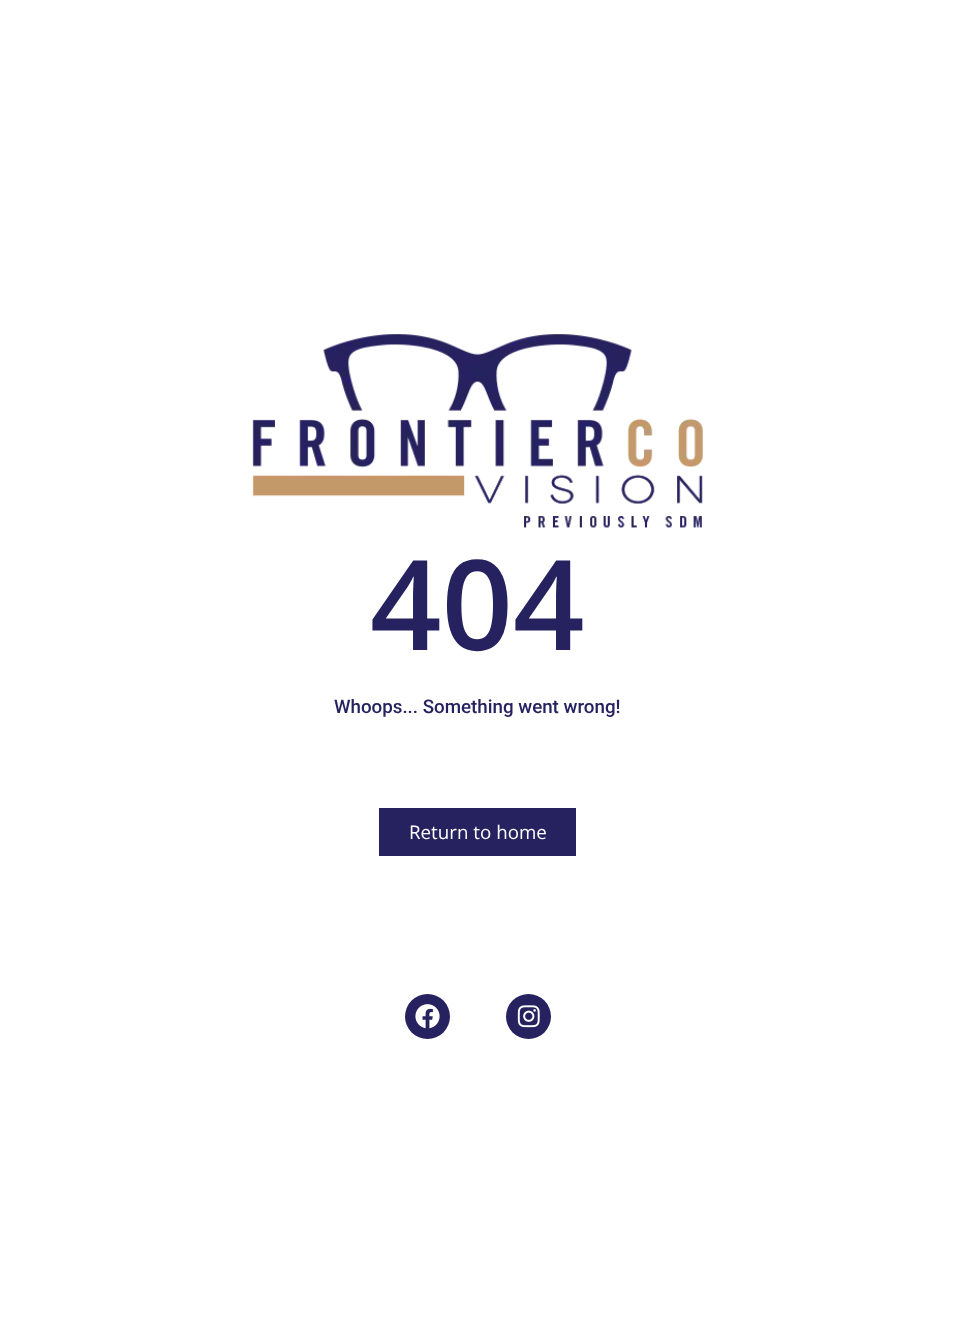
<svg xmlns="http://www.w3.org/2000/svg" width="955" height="1318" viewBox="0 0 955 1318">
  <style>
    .t1 { font: 600 125px Open Sans; fill: #25225f; }
    .t2 { font: 500 18.75px Roboto; fill: #25225f; }
    .t3 { font: 18.75px Open Sans; fill: #fff; }
  </style>
  <rect width="100%" height="100%" fill="#fff"/>
  <image x="252" y="334" width="451" height="194" href="images/1.png"/>
  <text x="370" y="650" class="t1">404</text>
  <text x="334" y="713" class="t2">Whoops... Something went wrong!</text>
  <rect x="379" y="808" width="197" height="48" fill="#25225f"/>
  <text x="409" y="839" class="t3">Return to home</text>
  <circle cx="427.5" cy="1016.5" r="22.5" fill="#25225f"/>
  <image x="415" y="1004" width="25" height="25" href="images/2.png"/>
  <circle cx="528.5" cy="1016.5" r="22.5" fill="#25225f"/>
  <image x="517" y="1005" width="23" height="23" href="images/3.png"/>
</svg>
